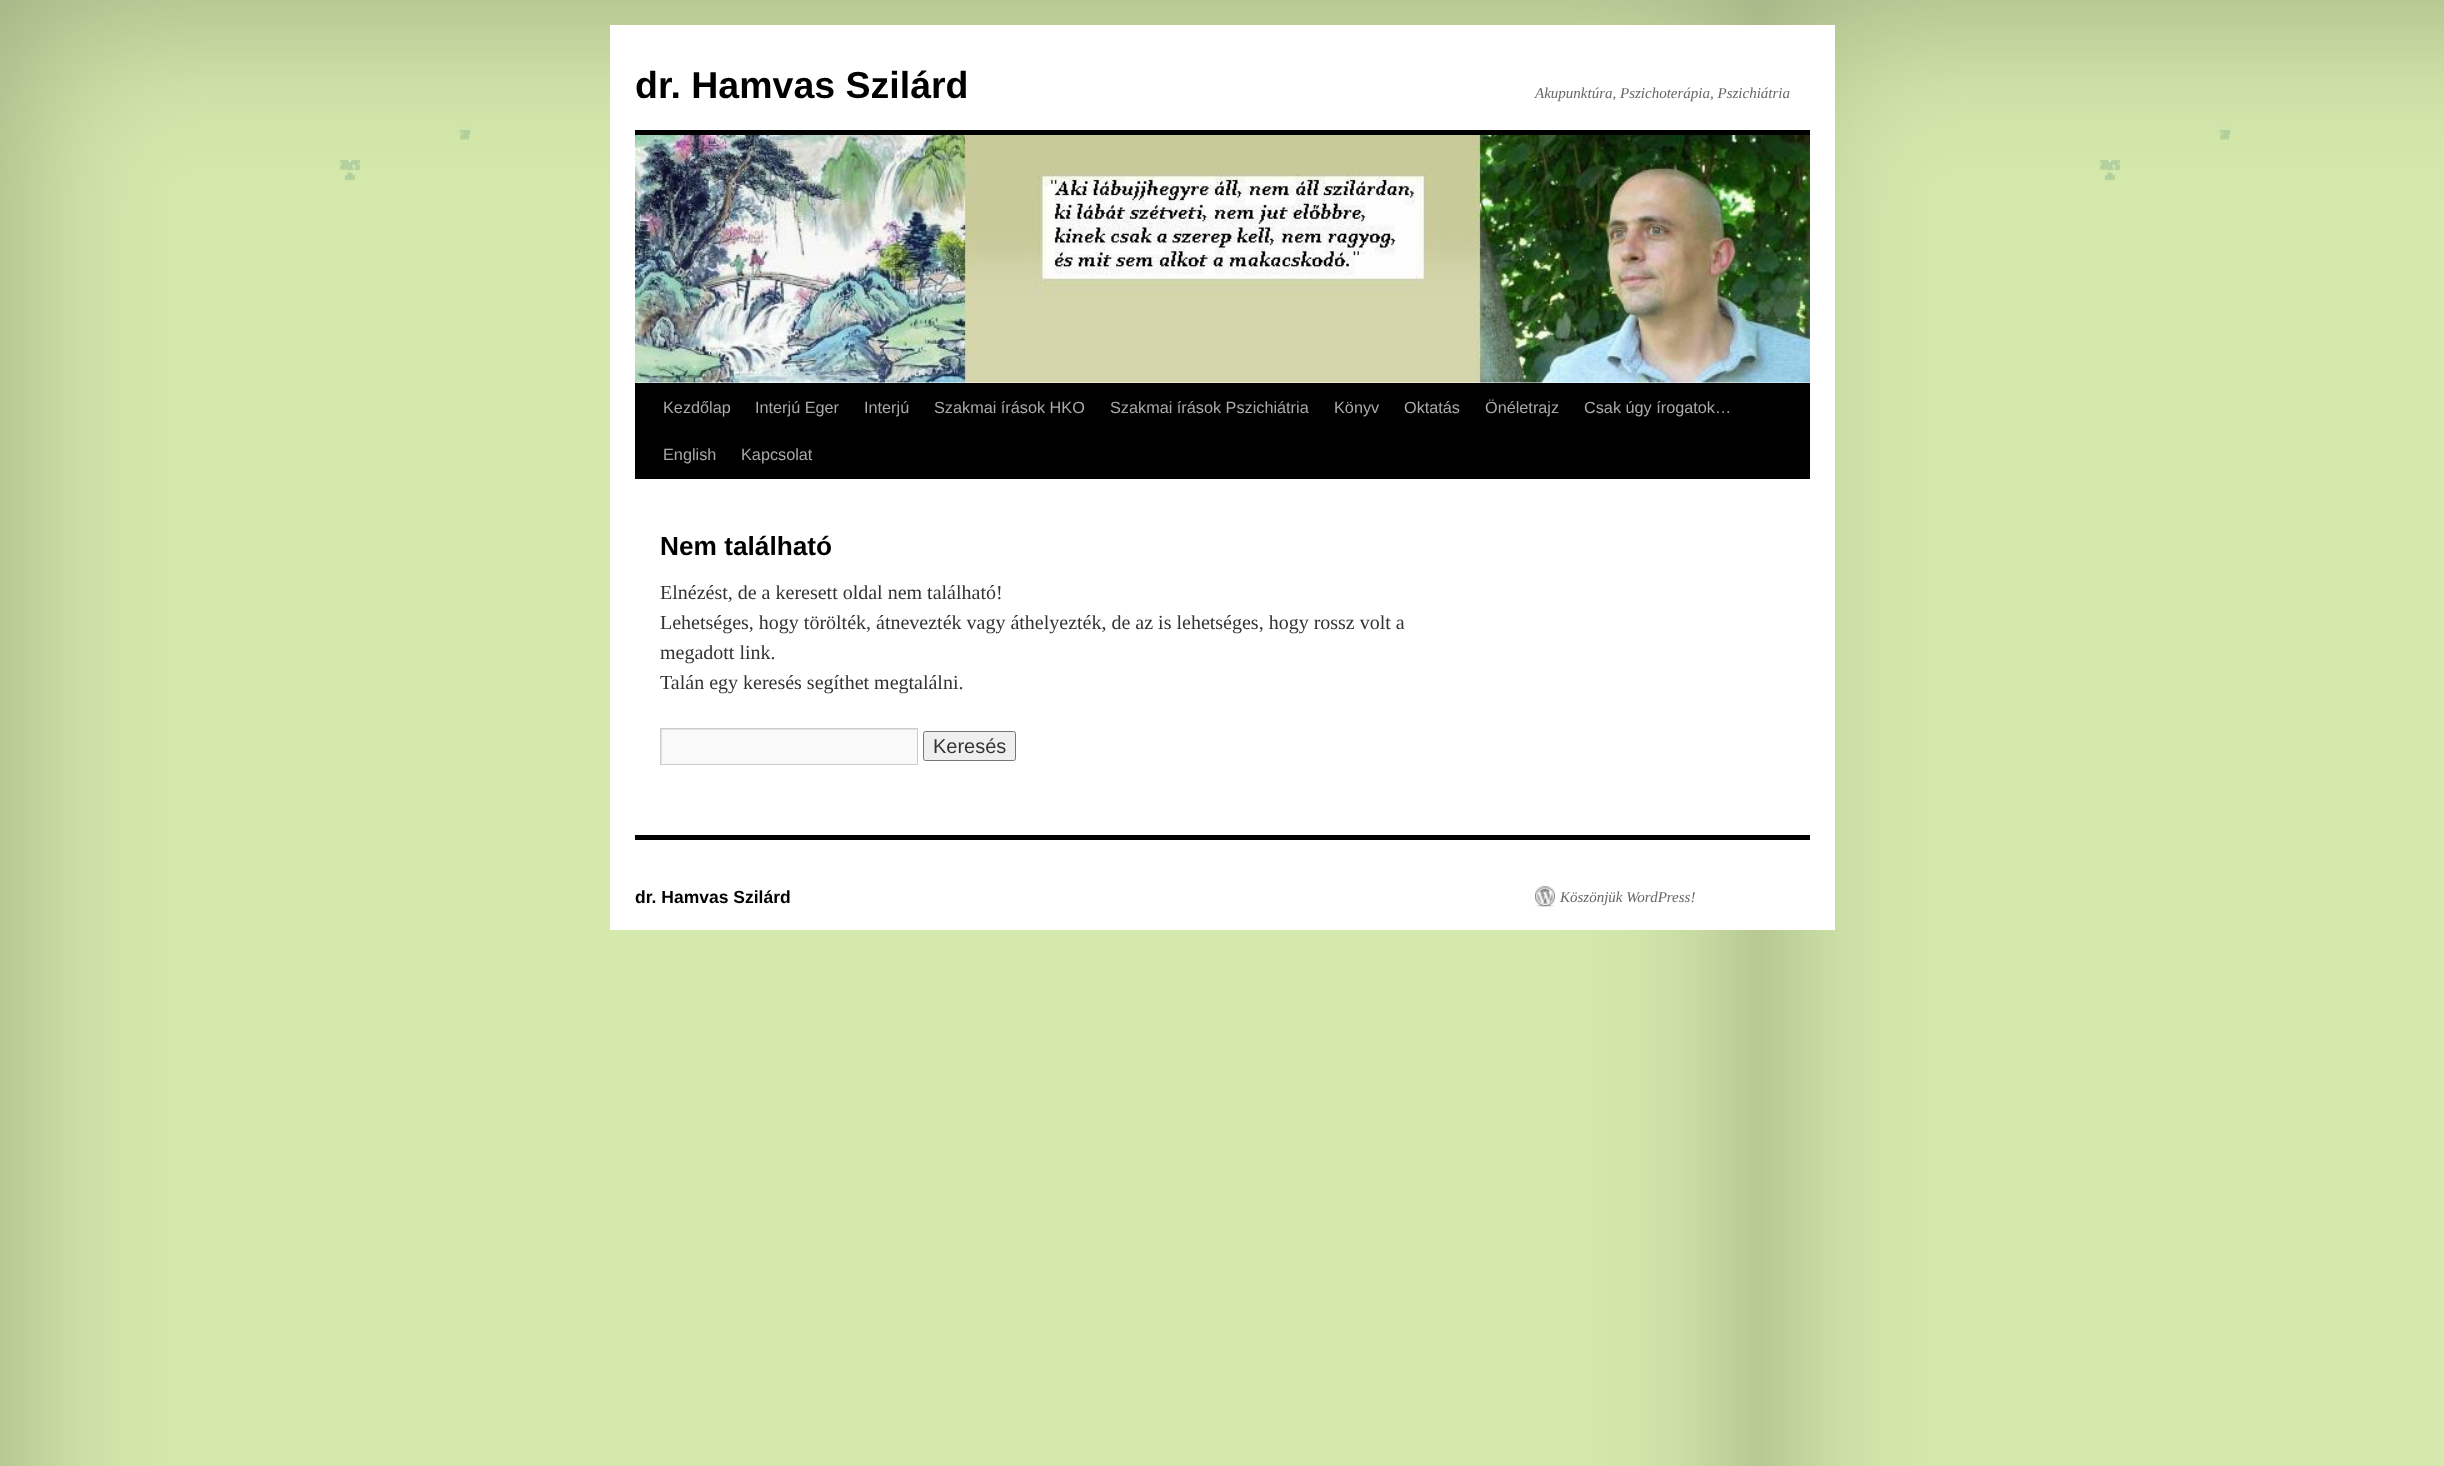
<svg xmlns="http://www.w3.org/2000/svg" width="2444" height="1466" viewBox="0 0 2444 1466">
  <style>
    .t1 { font: bold 37.5px Liberation Sans; fill: #000; }
    .t2 { font: italic 15px Liberation Serif; fill: #666; }
    .t3 { font: 16.25px Liberation Sans; fill: #aaa; }
    .t4 { font: bold 26.25px Liberation Sans; fill: #000; }
    .t5 { font: 20px Liberation Serif; fill: #333; }
    .t6 { font: 20px Liberation Sans; fill: #333; }
    .t7 { font: bold 17.5px Liberation Sans; fill: #000; }
  </style>
  <defs>
    <clipPath id="clip1"><rect x="661" y="729" width="255" height="35"/></clipPath>
  </defs>
  <rect width="100%" height="100%" fill="#fff"/>
  <image x="0" y="0" width="2444" height="1466" href="images/1.png"/>
  <rect x="610" y="25" width="1225" height="905" fill="#fff"/>
  <text x="635" y="98" class="t1">dr. Hamvas Szilárd</text>
  <text x="1535" y="98" class="t2">Akupunktúra, Pszichoterápia, Pszichiátria</text>
  <rect x="635" y="130" width="1175" height="5" fill="#000"/>
  <rect x="635" y="383" width="1175" height="96" fill="#000"/>
  <image x="635" y="135" width="1175" height="248" href="images/2.png"/>
  <text x="663" y="413" class="t3">Kezdőlap</text>
  <text x="755" y="413" class="t3">Interjú Eger</text>
  <text x="864" y="413" class="t3">Interjú</text>
  <text x="934" y="413" class="t3">Szakmai írások HKO</text>
  <text x="1110" y="413" class="t3">Szakmai írások Pszichiátria</text>
  <text x="1334" y="413" class="t3">Könyv</text>
  <text x="1404" y="413" class="t3">Oktatás</text>
  <text x="1485" y="413" class="t3">Önéletrajz</text>
  <text x="1584" y="413" class="t3">Csak úgy írogatok…</text>
  <text x="663" y="460" class="t3">English</text>
  <text x="741" y="460" class="t3">Kapcsolat</text>
  <text x="660" y="555" class="t4">Nem található</text>
  <text x="660" y="599" class="t5">Elnézést, de a keresett oldal nem található!</text>
  <text x="660" y="629" class="t5">Lehetséges, hogy törölték, átnevezték vagy áthelyezték, de az is lehetséges, hogy rossz volt a</text>
  <text x="660" y="659" class="t5">megadott link.</text>
  <text x="660" y="689" class="t5">Talán egy keresés segíthet megtalálni.</text>
  <rect x="662" y="729" width="255" height="35" fill="#f9f9f9"/>
  <g clip-path="url(#clip1)">
    <path d="M538 605H1040V888H538ZM662 730H918V765H662Z" fill="#e0e0e0" fill-rule="evenodd"/>
  </g>
  <rect x="660.5" y="728.5" width="257" height="36" fill="none" stroke="#ccc"/>
  <rect x="923.5" y="731.5" width="92" height="29" rx="2" fill="#efefef" stroke="#767676"/>
  <text x="933" y="753" class="t6">Keresés</text>
  <rect x="635" y="835" width="1175" height="5" fill="#000"/>
  <text x="635" y="903" class="t7">dr. Hamvas Szilárd</text>
  <image x="1535" y="886" width="20" height="21" href="images/3.png"/>
  <text x="1560" y="902" class="t2">Köszönjük WordPress!</text>
</svg>
